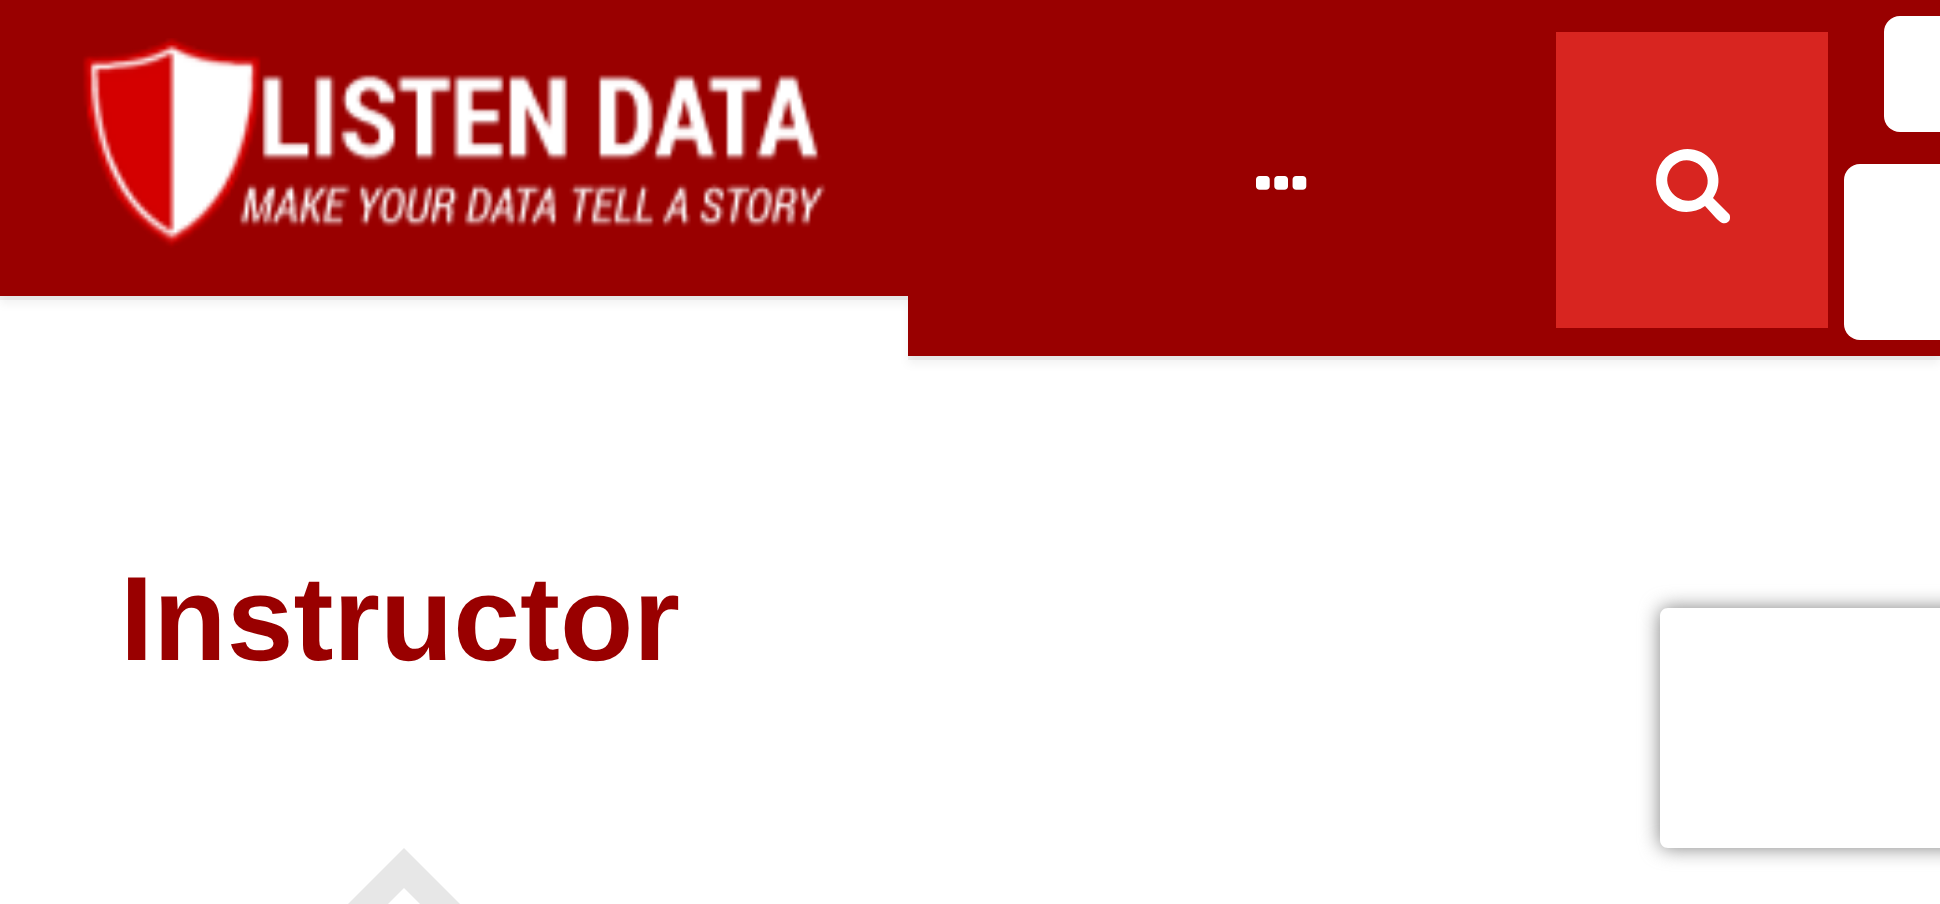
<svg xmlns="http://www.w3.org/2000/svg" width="1940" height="904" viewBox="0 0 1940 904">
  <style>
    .t1 { font: bold 120px Arimo; fill: #900; }
  </style>
  <defs>
    <clipPath id="clip1"><path d="M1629 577H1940V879H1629ZM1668 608H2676C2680.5 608 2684 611.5 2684 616V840C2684 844.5 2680.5 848 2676 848H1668C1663.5 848 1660 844.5 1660 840V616C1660 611.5 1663.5 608 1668 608Z" clip-rule="evenodd"/></clipPath>
  </defs>
  <rect width="100%" height="100%" fill="#fff"/>
  <rect x="908" y="356" width="1032" height="4" fill="#f2f2f2"/>
  <rect x="908" y="8" width="1032" height="356" fill="#0000000d" filter="blur(4px)"/>
  <rect x="0" y="296" width="908" height="4" fill="#0000000d"/>
  <rect x="0" y="8" width="908" height="296" fill="#0000000d" filter="blur(4px)"/>
  <rect x="0" y="0" width="908" height="296" fill="#900"/>
  <image x="82" y="38" width="744" height="210" href="images/1.png"/>
  <rect x="908" y="0" width="1032" height="356" fill="#900"/>
  <image x="1256" y="176" width="51" height="14" href="images/2.png"/>
  <rect x="1556" y="32" width="272" height="296" fill="#d82520"/>
  <path d="M1702 195C1720 176 1692 148 1673 166C1655 185 1683 213 1702 195ZM1730 218C1730 220 1729 221 1728 222C1723 226 1718 220 1715 217L1705 206C1697 212 1687 213 1678 211C1648 201 1649 158 1680 150C1687 148 1694 149 1701 152C1718 160 1724 183 1713 198L1729 214C1730 215 1730 216 1730 218Z" fill="#fff"/>
  <rect x="1884" y="16" width="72" height="116" rx="16" fill="#fff"/>
  <rect x="1844" y="164" width="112" height="176" rx="16" fill="#fff"/>
  <text x="120" y="660" class="t1">Instructor</text>
  <path d="M484 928H324L404 848Z" fill="#e7e7e7"/>
  <path d="M484 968H324L404 888Z" fill="#fff"/>
  <g clip-path="url(#clip1)">
    <rect x="1660" y="608" width="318" height="240" rx="8" fill="#808080" filter="blur(10px)"/>
  </g>
</svg>
